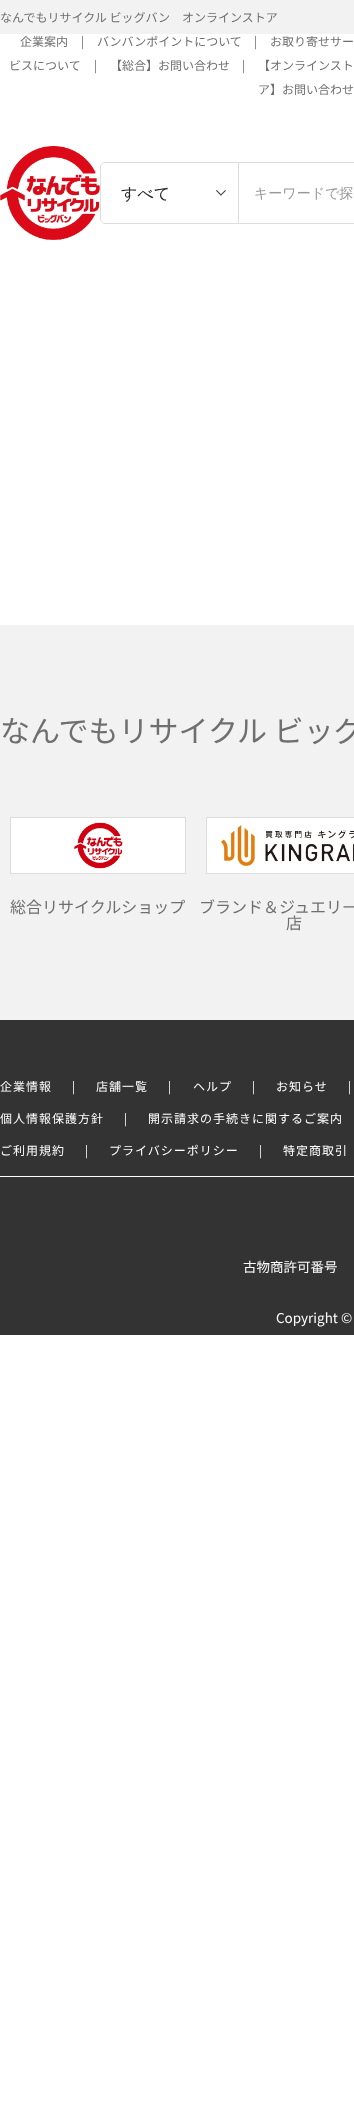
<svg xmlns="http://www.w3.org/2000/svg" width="354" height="2110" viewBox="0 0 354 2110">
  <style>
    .t1 { font: 12px Noto Sans JP; fill: #6f6f6f; }
    .t2 { font: 500 16px WenQuanYi Zen Hei; fill: #262626; }
    .t3 { font: 500 14px WenQuanYi Zen Hei; fill: #999; }
    .t4 { font: 30px Noto Sans JP; fill: #6f6f6f; }
    .t5 { font: 16px Noto Sans JP; fill: #6f6f6f; }
    .t6 { font: 12px Noto Sans JP; letter-spacing: 1px; fill: #fff; }
    .t7 { font: 13.5px Noto Sans JP; fill: #fff; }
  </style>
  <rect width="100%" height="100%" fill="#fff"/>
  <rect x="0" y="0" width="354" height="34" fill="#f2f2f2"/>
  <text x="0" y="22" class="t1">なんでもリサイクル ビッグバン　オンラインストア</text>
  <text x="20" y="46" class="t1">企業案内</text>
  <text x="81" y="46" class="t1">|</text>
  <text x="97" y="46" class="t1">バンバンポイントについて</text>
  <text x="254" y="46" class="t1">|</text>
  <text x="270" y="46" class="t1">お取り寄せサー</text>
  <text x="9" y="70" class="t1">ビスについて</text>
  <text x="94" y="70" class="t1">|</text>
  <text x="110" y="70" class="t1">【総合】お問い合わせ</text>
  <text x="242" y="70" class="t1">|</text>
  <text x="258" y="70" class="t1">【オンラインスト</text>
  <text x="258" y="94" class="t1">ア】お問い合わせ</text>
  <image x="0" y="146" width="100" height="94" href="images/1.png"/>
  <rect x="100.5" y="162.5" width="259" height="61" rx="4.5" fill="none" stroke="#ddd"/>
  <path d="M106 163H239V223H106C103 223 101 221 101 218V168C101 165 103 163 106 163Z" fill="#fff"/>
  <image x="216" y="190" width="10" height="6" href="images/2.png"/>
  <rect x="238" y="163" width="1" height="60" fill="#ddd"/>
  <text x="121" y="199" class="t2">すべて</text>
  <text x="254" y="198" class="t3">キーワードで探</text>
  <rect x="0" y="1020" width="354" height="315" fill="#333"/>
  <rect x="0" y="625" width="354" height="395" fill="#f2f2f2"/>
  <text x="0" y="742" class="t4">なんでもリサイクル ビッグ</text>
  <image x="10" y="817" width="176" height="57" href="images/3.png"/>
  <text x="10" y="913" class="t5">総合リサイクルショップ</text>
  <image x="206" y="817" width="148" height="57" href="images/4.png"/>
  <text x="199" y="913" class="t5">ブランド＆ジュエリー</text>
  <text x="286" y="929" class="t5">店</text>
  <rect x="0" y="1176" width="354" height="1" fill="#fff"/>
  <text x="0" y="1091" class="t6">企業情報</text>
  <text x="72" y="1091" class="t6">|</text>
  <text x="96" y="1091" class="t6">店舗一覧</text>
  <text x="168" y="1091" class="t6">|</text>
  <text x="193" y="1091" class="t6">ヘルプ</text>
  <text x="252" y="1091" class="t6">|</text>
  <text x="276" y="1091" class="t6">お知らせ</text>
  <text x="348" y="1091" class="t6">|</text>
  <text x="0" y="1123" class="t6">個人情報保護方針</text>
  <text x="124" y="1123" class="t6">|</text>
  <text x="148" y="1123" class="t6">開示請求の手続きに関するご案内</text>
  <text x="0" y="1155" class="t6">ご利用規約</text>
  <text x="85" y="1155" class="t6">|</text>
  <text x="109" y="1155" class="t6">プライバシーポリシー</text>
  <text x="259" y="1155" class="t6">|</text>
  <text x="283" y="1155" class="t6">特定商取引</text>
  <text x="243" y="1272" class="t7">古物商許可番号</text>
  <text x="276" y="1323" class="t7">Copyright ©</text>
</svg>
